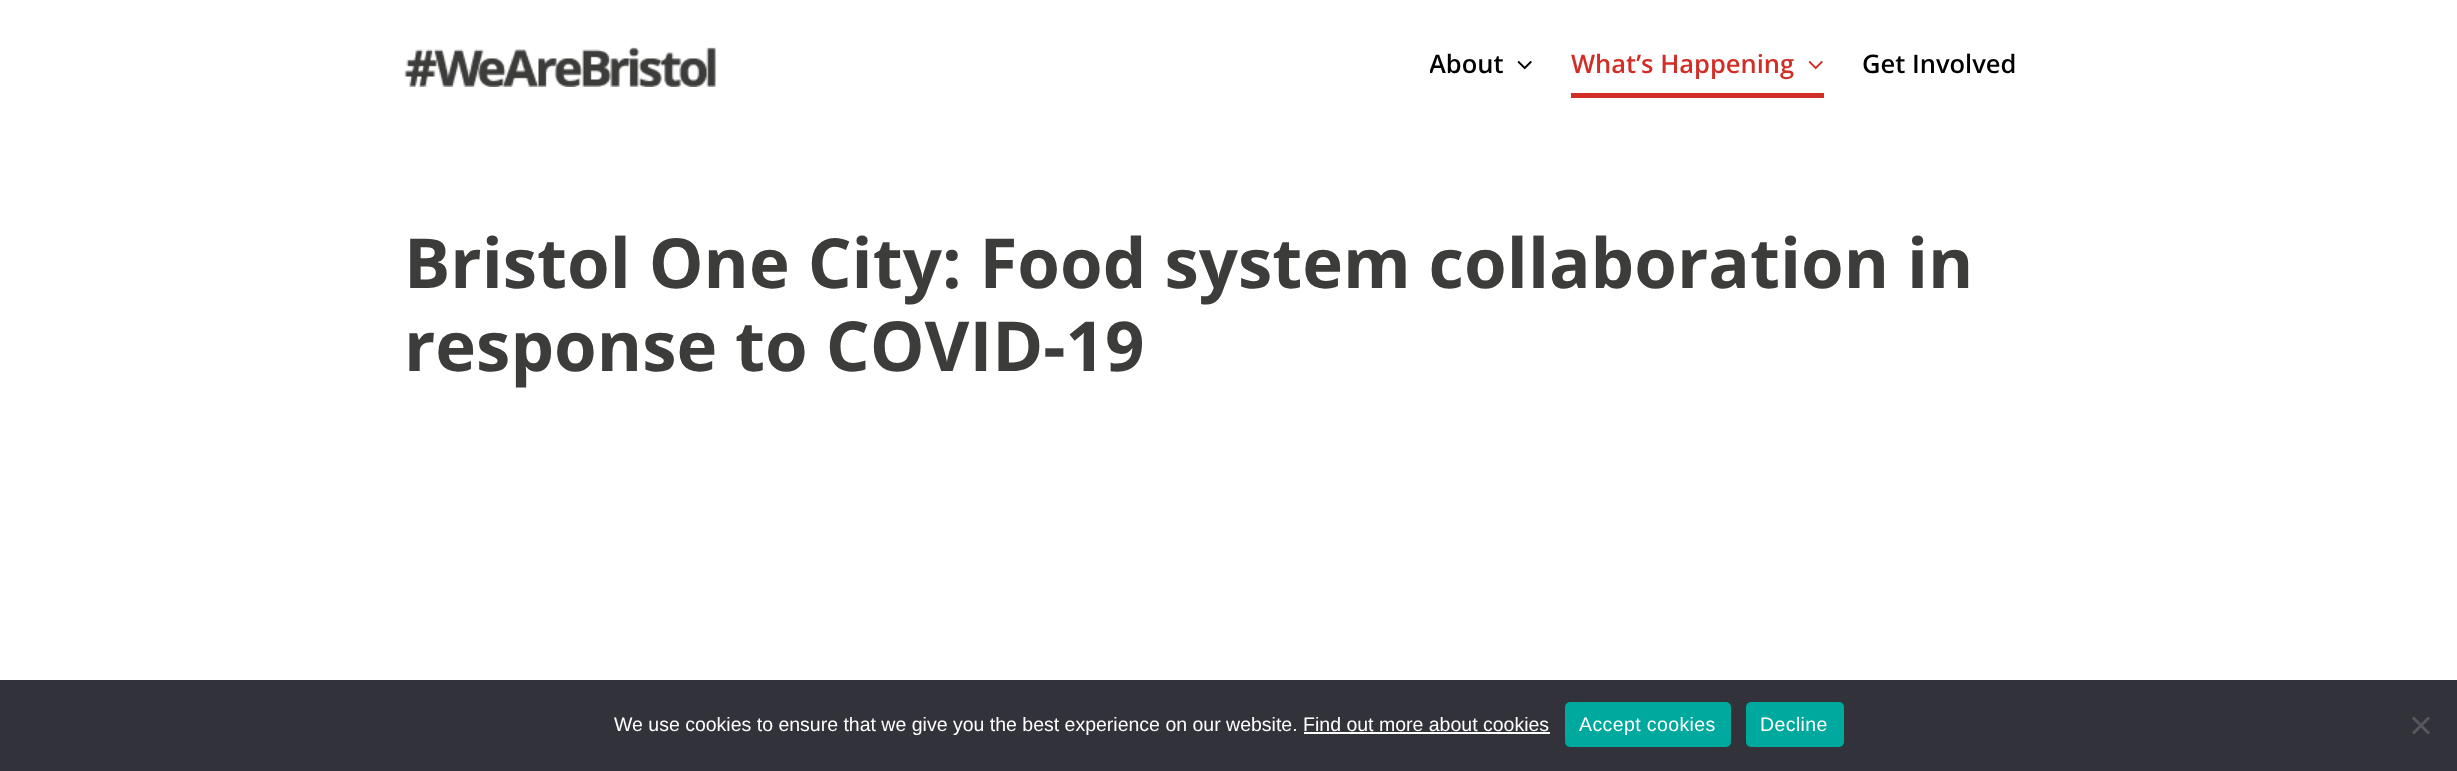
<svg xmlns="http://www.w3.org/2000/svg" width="2457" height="771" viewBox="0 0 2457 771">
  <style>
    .t1 { font: 600 25.5px Open Sans; fill: #000; }
    .t2 { font: 600 25.5px Open Sans; fill: #d02e26; }
    .t3 { font: bold 69px Open Sans; fill: #3c3c3a; }
    .t4 { font: 19.5px Liberation Sans; fill: #fff; }
    .t5 { font: 19.5px Liberation Sans; letter-spacing: 0.4px; fill: #fff; }
  </style>
  <defs>
    <clipPath id="clip1"><rect x="1430" y="0" width="141" height="126"/></clipPath>
  </defs>
  <rect width="100%" height="100%" fill="#fff"/>
  <image x="404" y="47" width="312" height="40" href="images/1.png"/>
  <g clip-path="url(#clip1)">
    <text x="1429" y="73" class="t1">About</text>
  </g>
  <image x="1517" y="61" width="15" height="9" href="images/2.png"/>
  <text x="1571" y="73" class="t2">What’s Happening</text>
  <image x="1808" y="61" width="15" height="9" href="images/3.png"/>
  <rect x="1571" y="93" width="253" height="5" fill="#d02e26"/>
  <text x="1862" y="73" class="t1">Get Involved</text>
  <text x="404" y="288" class="t3">Bristol One City: Food system collaboration in</text>
  <text x="404" y="371" class="t3">response to COVID-19</text>
  <rect x="0" y="680" width="2457" height="91" fill="#32323a"/>
  <text x="614" y="731" class="t4">We use cookies to ensure that we give you the best experience on our website. Find out more about cookies</text>
  <rect x="1304" y="732" width="246" height="2" fill="#fff"/>
  <rect x="1565" y="702" width="166" height="45" rx="5" fill="#00a99d"/>
  <text x="1579" y="731" class="t5">Accept cookies</text>
  <rect x="1746" y="702" width="98" height="45" rx="5" fill="#00a99d"/>
  <text x="1760" y="731" class="t5">Decline</text>
  <path d="M2428 716.5L2430 718.5L2414 734.5L2412 732.5Z" fill="#59595d"/>
  <path d="M2412 718.5L2414 716.5L2430 732.5L2428 734.5Z" fill="#59595d"/>
</svg>
